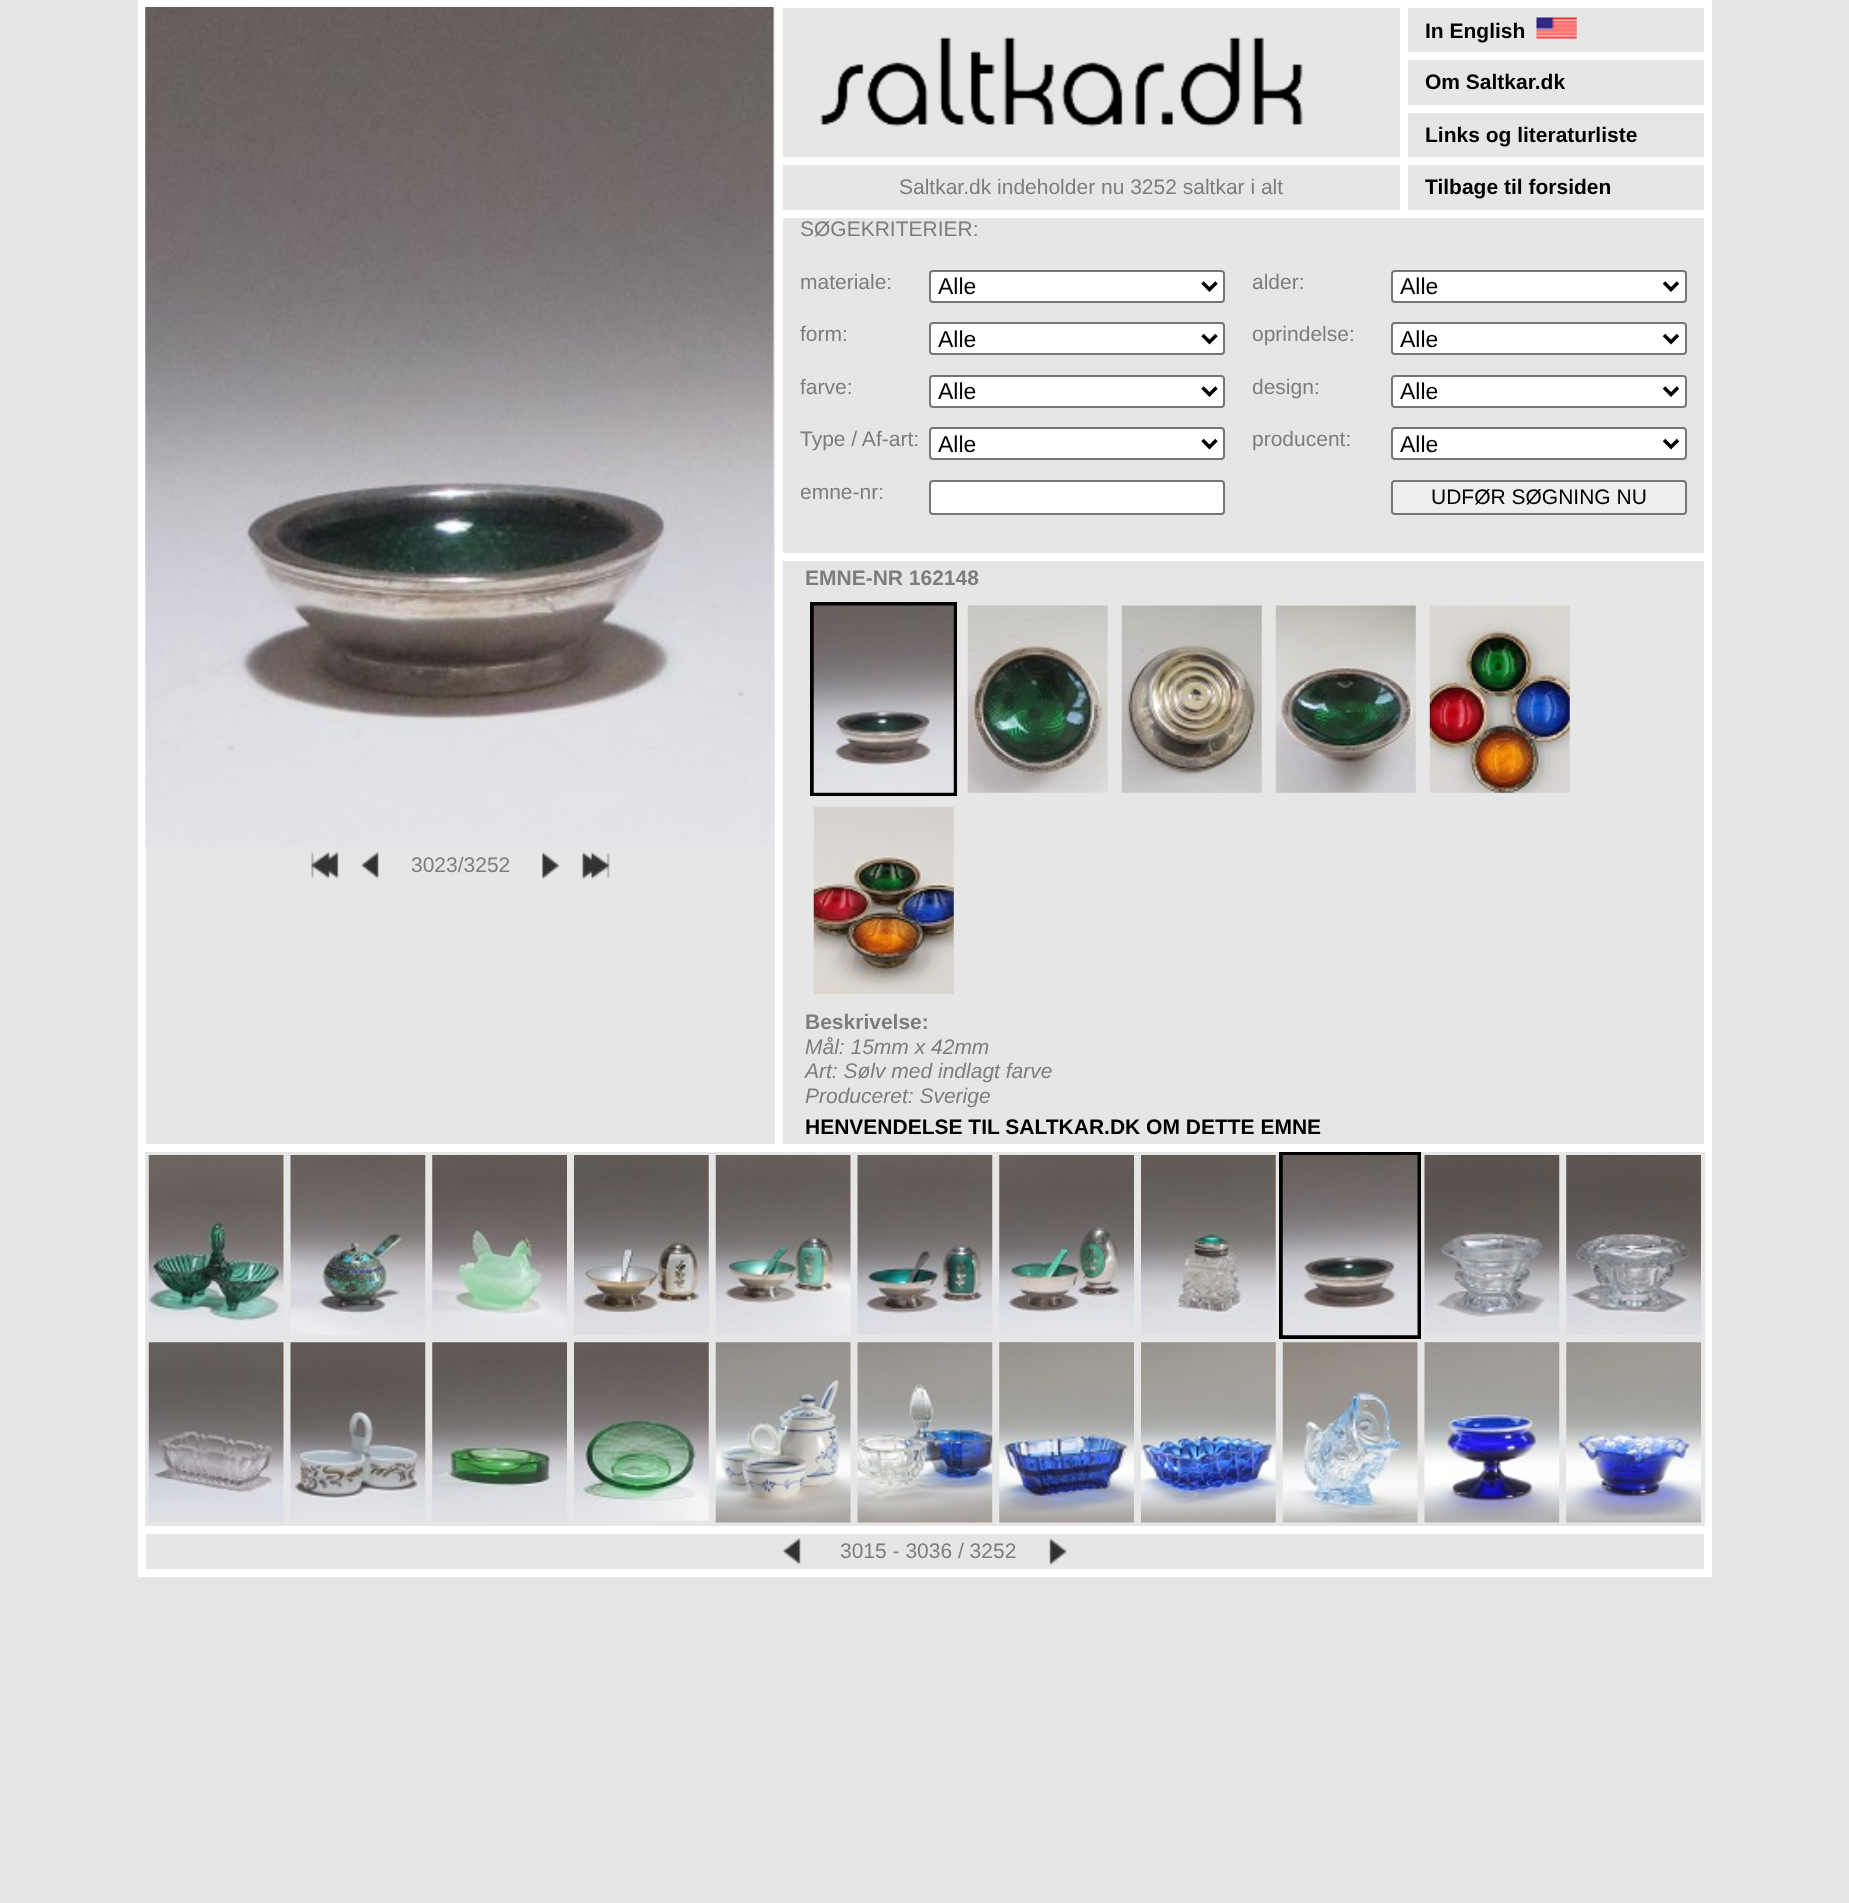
<svg xmlns="http://www.w3.org/2000/svg" width="1849" height="1903" viewBox="0 0 1849 1903">
  <style>
    .t1 { font: bold 21px Liberation Sans; fill: #000; }
    .t2 { font: 21px Liberation Sans; fill: #7d7d7d; }
    .t3 { font: 23px Liberation Sans; fill: #000; }
    .t4 { font: 21px Liberation Sans; fill: #000; }
    .t5 { font: bold 21px Liberation Sans; fill: #7d7d7d; }
    .t6 { font: italic 21px Liberation Sans; fill: #7d7d7d; }
  </style>
  <rect width="100%" height="100%" fill="#e6e6e6"/>
  <rect x="140" y="2" width="1570" height="1573" fill="none" stroke="#fff" stroke-width="4"/>
  <rect x="781" y="6" width="621" height="153" fill="none" stroke="#fff" stroke-width="4"/>
  <image x="820" y="36" width="483" height="91" href="images/1.png"/>
  <rect x="1406" y="6" width="300" height="48" fill="none" stroke="#fff" stroke-width="4"/>
  <text x="1425" y="38" class="t1">In English</text>
  <image x="1536" y="17" width="41" height="22" href="images/2.png"/>
  <rect x="144" y="6" width="633" height="1140" fill="none" stroke="#fff" stroke-width="4"/>
  <image x="145" y="7" width="629" height="840" href="images/3.png"/>
  <image x="311" y="852" width="28" height="27" href="images/4.png"/>
  <image x="360" y="852" width="19" height="27" href="images/5.png"/>
  <text x="411" y="872" class="t2">3023/3252</text>
  <image x="542" y="852" width="18" height="27" href="images/6.png"/>
  <image x="582" y="852" width="28" height="27" href="images/7.png"/>
  <rect x="1406" y="58" width="300" height="49" fill="none" stroke="#fff" stroke-width="4"/>
  <text x="1425" y="89" class="t1">Om Saltkar.dk</text>
  <rect x="1406" y="111" width="300" height="48" fill="none" stroke="#fff" stroke-width="4"/>
  <text x="1425" y="142" class="t1">Links og literaturliste</text>
  <rect x="781" y="163" width="621" height="49" fill="none" stroke="#fff" stroke-width="4"/>
  <text x="899" y="194" class="t2">Saltkar.dk indeholder nu 3252 saltkar i alt</text>
  <rect x="1406" y="163" width="300" height="49" fill="none" stroke="#fff" stroke-width="4"/>
  <text x="1425" y="194" class="t1">Tilbage til forsiden</text>
  <rect x="781" y="216" width="925" height="339" fill="none" stroke="#fff" stroke-width="4"/>
  <text x="800" y="236" class="t2">SØGEKRITERIER:</text>
  <text x="800" y="289" class="t2">materiale:</text>
  <rect x="930" y="271" width="294" height="31" rx="3" fill="#fff" stroke="#767676" stroke-width="2"/>
  <path d="M1202.5 282.5L1209.5 289.5L1216.5 282.5" fill="none" stroke="#000" stroke-width="3.5"/>
  <text x="938" y="294" class="t3">Alle</text>
  <text x="1252" y="289" class="t2">alder:</text>
  <rect x="1392" y="271" width="294" height="31" rx="3" fill="#fff" stroke="#767676" stroke-width="2"/>
  <path d="M1664 282.5L1671 289.5L1678 282.5" fill="none" stroke="#000" stroke-width="3.5"/>
  <text x="1400" y="294" class="t3">Alle</text>
  <text x="800" y="341" class="t2">form:</text>
  <rect x="930" y="323" width="294" height="31" rx="3" fill="#fff" stroke="#767676" stroke-width="2"/>
  <path d="M1202.5 335L1209.5 342L1216.5 335" fill="none" stroke="#000" stroke-width="3.5"/>
  <text x="938" y="347" class="t3">Alle</text>
  <text x="1252" y="341" class="t2">oprindelse:</text>
  <rect x="1392" y="323" width="294" height="31" rx="3" fill="#fff" stroke="#767676" stroke-width="2"/>
  <path d="M1664 335L1671 342L1678 335" fill="none" stroke="#000" stroke-width="3.5"/>
  <text x="1400" y="347" class="t3">Alle</text>
  <text x="800" y="394" class="t2">farve:</text>
  <rect x="930" y="376" width="294" height="31" rx="3" fill="#fff" stroke="#767676" stroke-width="2"/>
  <path d="M1202.5 387.5L1209.5 394.5L1216.5 387.5" fill="none" stroke="#000" stroke-width="3.5"/>
  <text x="938" y="399" class="t3">Alle</text>
  <text x="1252" y="394" class="t2">design:</text>
  <rect x="1392" y="376" width="294" height="31" rx="3" fill="#fff" stroke="#767676" stroke-width="2"/>
  <path d="M1664 387.5L1671 394.5L1678 387.5" fill="none" stroke="#000" stroke-width="3.5"/>
  <text x="1400" y="399" class="t3">Alle</text>
  <text x="800" y="446" class="t2">Type / Af-art:</text>
  <rect x="930" y="428" width="294" height="31" rx="3" fill="#fff" stroke="#767676" stroke-width="2"/>
  <path d="M1202.5 440L1209.5 447L1216.5 440" fill="none" stroke="#000" stroke-width="3.5"/>
  <text x="938" y="452" class="t3">Alle</text>
  <text x="1252" y="446" class="t2">producent:</text>
  <rect x="1392" y="428" width="294" height="31" rx="3" fill="#fff" stroke="#767676" stroke-width="2"/>
  <path d="M1664 440L1671 447L1678 440" fill="none" stroke="#000" stroke-width="3.5"/>
  <text x="1400" y="452" class="t3">Alle</text>
  <text x="800" y="499" class="t2">emne-nr:</text>
  <rect x="930" y="481" width="294" height="33" rx="3" fill="#fff" stroke="#767676" stroke-width="2"/>
  <rect x="1392" y="481" width="294" height="33" rx="3" fill="#efefef" stroke="#767676" stroke-width="2"/>
  <text x="1431" y="504" class="t4">UDFØR SØGNING NU</text>
  <rect x="781" y="559" width="925" height="587" fill="none" stroke="#fff" stroke-width="4"/>
  <text x="805" y="585" class="t5">EMNE-NR 162148</text>
  <rect x="812" y="604" width="143" height="190" fill="none" stroke="#000" stroke-width="4"/>
  <image x="813" y="605" width="141" height="188" href="images/8.png"/>
  <image x="967" y="605" width="141" height="188" href="images/9.png"/>
  <image x="1121" y="605" width="141" height="188" href="images/10.png"/>
  <image x="1275" y="605" width="141" height="188" href="images/11.png"/>
  <image x="1429" y="605" width="141" height="188" href="images/12.png"/>
  <image x="813" y="806" width="141" height="188" href="images/13.png"/>
  <text x="805" y="1029" class="t5">Beskrivelse:</text>
  <text x="805" y="1054" class="t6">Mål: 15mm x 42mm</text>
  <text x="805" y="1078" class="t6">Art: Sølv med indlagt farve</text>
  <text x="805" y="1103" class="t6">Produceret: Sverige</text>
  <text x="805" y="1134" class="t1">HENVENDELSE TIL SALTKAR.DK OM DETTE EMNE</text>
  <rect x="144" y="1150" width="1562" height="378" fill="none" stroke="#fff" stroke-width="4"/>
  <rect x="147" y="1154" width="138" height="183" fill="none" stroke="#e6e6e6" stroke-width="4"/>
  <image x="148" y="1155" width="136" height="180" href="images/14.png"/>
  <image x="290" y="1155" width="136" height="180" href="images/15.png"/>
  <image x="432" y="1155" width="135" height="180" href="images/16.png"/>
  <image x="574" y="1155" width="135" height="180" href="images/17.png"/>
  <image x="715" y="1155" width="136" height="180" href="images/18.png"/>
  <image x="857" y="1155" width="136" height="180" href="images/19.png"/>
  <image x="999" y="1155" width="135" height="180" href="images/20.png"/>
  <image x="1141" y="1155" width="135" height="180" href="images/21.png"/>
  <rect x="1281" y="1154" width="138" height="183" fill="none" stroke="#000" stroke-width="4"/>
  <image x="1282" y="1155" width="136" height="181" href="images/22.png"/>
  <image x="1424" y="1155" width="136" height="180" href="images/23.png"/>
  <rect x="1565" y="1154" width="138" height="183" fill="none" stroke="#e6e6e6" stroke-width="4"/>
  <image x="1566" y="1155" width="135" height="180" href="images/24.png"/>
  <rect x="147" y="1341" width="138" height="183" fill="none" stroke="#e6e6e6" stroke-width="4"/>
  <image x="148" y="1342" width="136" height="181" href="images/25.png"/>
  <image x="290" y="1342" width="136" height="180" href="images/26.png"/>
  <image x="432" y="1342" width="135" height="181" href="images/27.png"/>
  <image x="574" y="1342" width="135" height="179" href="images/28.png"/>
  <image x="715" y="1342" width="136" height="181" href="images/29.png"/>
  <image x="857" y="1342" width="136" height="181" href="images/30.png"/>
  <image x="999" y="1342" width="135" height="181" href="images/31.png"/>
  <image x="1141" y="1342" width="135" height="181" href="images/32.png"/>
  <image x="1282" y="1342" width="136" height="181" href="images/33.png"/>
  <image x="1424" y="1342" width="136" height="181" href="images/34.png"/>
  <rect x="1565" y="1341" width="138" height="183" fill="none" stroke="#e6e6e6" stroke-width="4"/>
  <image x="1566" y="1342" width="135" height="181" href="images/35.png"/>
  <rect x="144" y="1532" width="1562" height="39" fill="none" stroke="#fff" stroke-width="4"/>
  <image x="782" y="1538" width="19" height="27" href="images/36.png"/>
  <text x="840" y="1558" class="t2">3015 - 3036 / 3252</text>
  <image x="1049" y="1538" width="19" height="27" href="images/37.png"/>
</svg>
